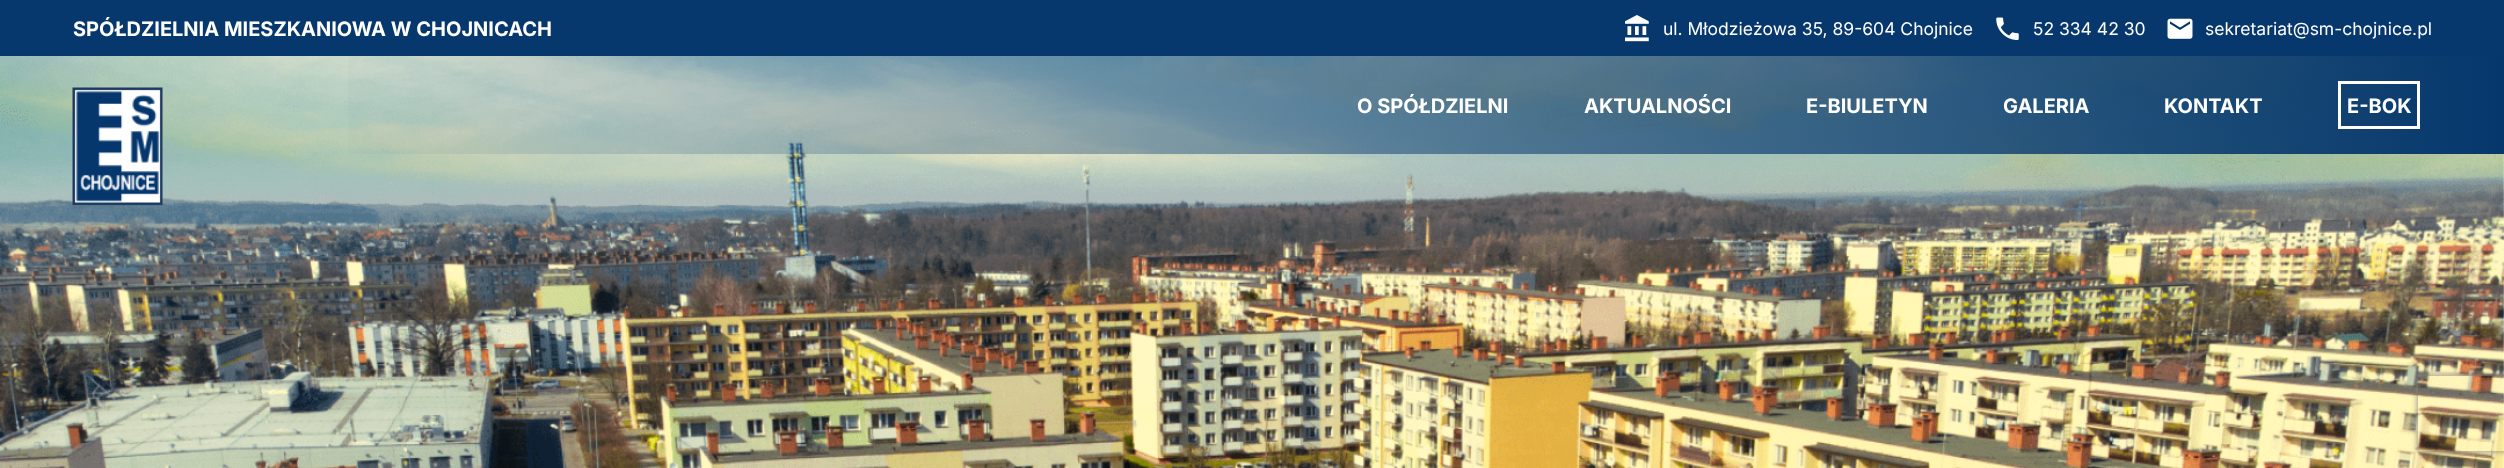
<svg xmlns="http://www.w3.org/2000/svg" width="2504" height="468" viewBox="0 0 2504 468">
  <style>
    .t1 { font: bold 20px Inter; fill: #fff; }
    .t2 { font: 17.5px Inter; fill: #fff; }
  </style>
  <defs>
    <linearGradient id="g1" gradientUnits="userSpaceOnUse" x1="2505" y1="105" x2="0" y2="105"><stop offset="0" stop-color="#05376d"/><stop offset="0.88" stop-color="#05376d" stop-opacity="0"/></linearGradient>
    <clipPath id="clip1"><path d="M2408 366H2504V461H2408ZM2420.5 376H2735.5C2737 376 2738 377 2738 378.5V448.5C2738 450 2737 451 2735.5 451H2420.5C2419 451 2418 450 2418 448.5V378.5C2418 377 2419 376 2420.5 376Z" clip-rule="evenodd"/></clipPath>
  </defs>
  <rect width="100%" height="100%" fill="#fff"/>
  <rect x="0" y="0" width="2504" height="56" fill="#06386d"/>
  <text x="73" y="36" class="t1">SPÓŁDZIELNIA MIESZKANIOWA W CHOJNICACH</text>
  <image x="1625" y="15" width="24" height="27" href="images/1.png"/>
  <text x="1663" y="35" class="t2">ul. Młodzieżowa 35, 89-604 Chojnice</text>
  <image x="1996" y="17" width="23" height="23" href="images/2.png"/>
  <text x="2033" y="35" class="t2">52 334 42 30</text>
  <image x="2167" y="18" width="26" height="21" href="images/3.png"/>
  <text x="2205" y="35" class="t2">sekretariat@sm-chojnice.pl</text>
  <image x="0" y="56" width="2504" height="412" href="images/5.png"/>
  <rect x="348" y="56" width="2156" height="98" fill="url(#g1)"/>
  <image x="72" y="87" width="91" height="119" href="images/4.png"/>
  <text x="1357" y="113" class="t1">O SPÓŁDZIELNI</text>
  <text x="1584" y="113" class="t1">AKTUALNOŚCI</text>
  <text x="1806" y="113" class="t1">E-BIULETYN</text>
  <text x="2003" y="113" class="t1">GALERIA</text>
  <text x="2164" y="113" class="t1">KONTAKT</text>
  <rect x="2339.5" y="82.5" width="79" height="45" fill="none" stroke="#fff" stroke-width="3"/>
  <text x="2347" y="113" class="t1">E-BOK</text>
  <g clip-path="url(#clip1)">
    <rect x="2418" y="376" width="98" height="75" rx="2.5" fill="#808080" filter="blur(3px)"/>
  </g>
</svg>
